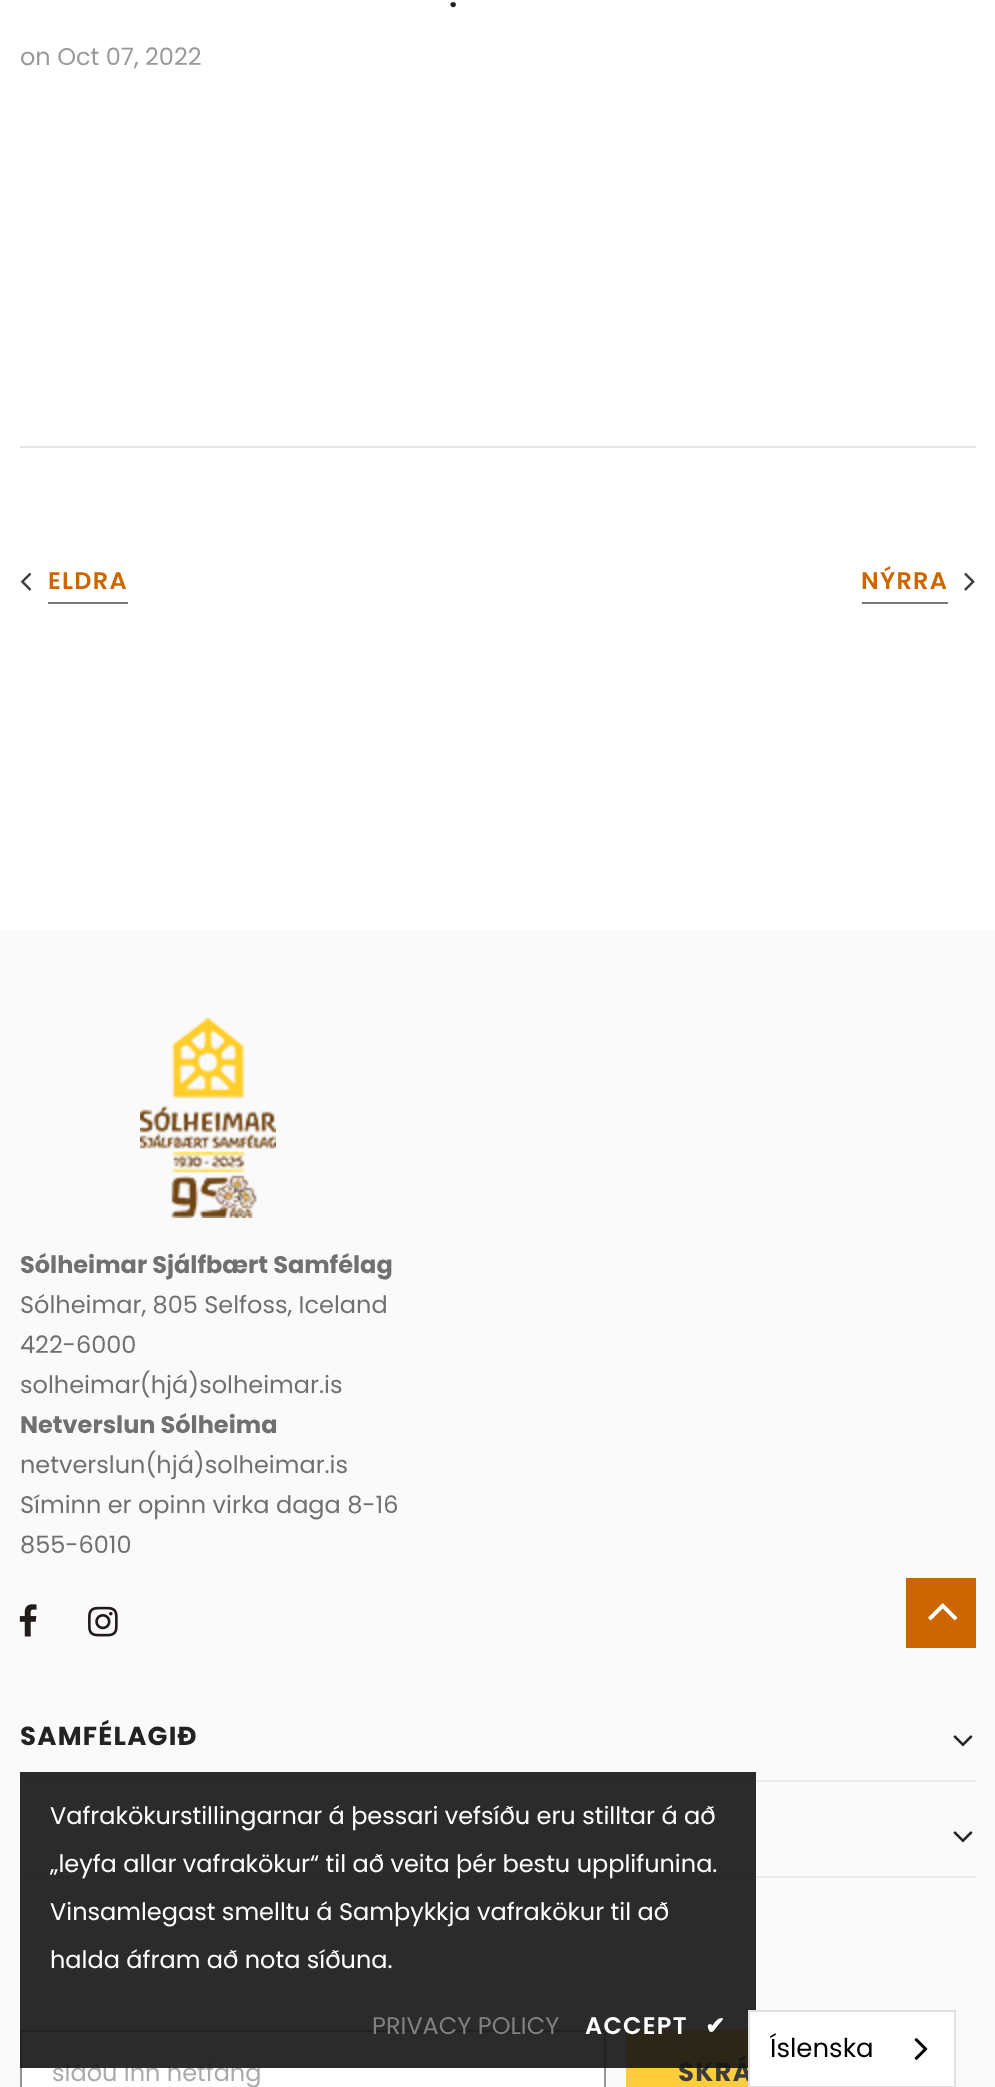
<svg xmlns="http://www.w3.org/2000/svg" width="995" height="2087" viewBox="0 0 995 2087">
  <style>
    .t1 { font: 600 32px Poppins; fill: #232323; }
    .t2 { font: 24px Poppins; fill: #999; }
    .t3 { font: 600 24px Poppins; letter-spacing: 1.25px; fill: #c60; }
    .t4 { font: bold 24px Poppins; fill: #707070; }
    .t5 { font: 24px Poppins; fill: #707070; }
    .t6 { font: bold 26px Poppins; letter-spacing: 1.25px; fill: #232323; }
    .t7 { font: 24px Poppins; fill: #aaa; }
    .t8 { font: bold 26px Poppins; letter-spacing: 1.25px; fill: #3c3c3c; }
    .t9 { font: 24px Poppins; fill: #fff; }
    .t10 { font: 24px Poppins; fill: #818181; }
    .t11 { font: 600 24px Poppins; letter-spacing: 1.25px; fill: #fff; }
    .t12 { font: bold 24px DejaVu Sans; letter-spacing: 1.25px; fill: #fff; }
    .t13 { font: 26px Poppins; fill: #000; }
  </style>
  <rect width="100%" height="100%" fill="#fff"/>
  <text x="449" y="7" class="t1">.</text>
  <text x="20" y="65" class="t2">on Oct 07, 2022</text>
  <rect x="20" y="446" width="956" height="2" fill="#e6e6e6"/>
  <image x="20" y="572" width="12" height="19" href="images/1.png"/>
  <rect x="48" y="602" width="80" height="2" fill="#787878"/>
  <text x="48" y="589" class="t3">ELDRA</text>
  <rect x="862" y="602" width="86" height="2" fill="#787878"/>
  <text x="861" y="589" class="t3">NÝRRA</text>
  <image x="964" y="572" width="11" height="19" href="images/2.png"/>
  <rect x="0" y="930" width="995" height="1157" fill="#fafafa"/>
  <image x="140" y="1018" width="136" height="200" href="images/3.png"/>
  <text x="20" y="1273" class="t4">Sólheimar Sjálfbært Samfélag</text>
  <text x="20" y="1313" class="t5">Sólheimar, 805 Selfoss, Iceland</text>
  <text x="20" y="1353" class="t5">422-6000</text>
  <text x="20" y="1393" class="t5">solheimar(hjá)solheimar.is</text>
  <text x="20" y="1433" class="t4">Netverslun Sólheima</text>
  <text x="20" y="1473" class="t5">netverslun(hjá)solheimar.is</text>
  <text x="20" y="1513" class="t5">Síminn er opinn virka daga 8-16</text>
  <text x="20" y="1553" class="t5">855-6010</text>
  <image x="19" y="1604" width="18" height="33" href="images/4.png"/>
  <image x="88" y="1606" width="30" height="31" href="images/5.png"/>
  <rect x="20" y="1780" width="956" height="2" fill="#ebebeb"/>
  <text x="20" y="1745" class="t6">SAMFÉLAGIÐ</text>
  <image x="953" y="1735" width="20" height="12" href="images/6.png"/>
  <rect x="20" y="1876" width="956" height="2" fill="#ebebeb"/>
  <image x="953" y="1831" width="20" height="12" href="images/6.png"/>
  <rect x="21" y="2031" width="584" height="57" fill="#fff" stroke="#969696" stroke-width="2"/>
  <text x="52" y="2081" class="t7">sláðu inn netfang</text>
  <rect x="626" y="2030" width="122" height="57" fill="#ffcc3b"/>
  <text x="678" y="2081" class="t8">SKRÁ</text>
  <rect x="906" y="1578" width="70" height="70" fill="#c60"/>
  <image x="928" y="1603" width="30" height="18" href="images/7.png"/>
  <rect x="20" y="1772" width="736" height="296" fill="#141414e6"/>
  <text x="50" y="1824" class="t9">Vafrakökurstillingarnar á þessari vefsíðu eru stilltar á að</text>
  <text x="50" y="1872" class="t9">„leyfa allar vafrakökur“ til að veita þér bestu upplifunina.</text>
  <text x="50" y="1920" class="t9">Vinsamlegast smelltu á Samþykkja vafrakökur til að</text>
  <text x="50" y="1968" class="t9">halda áfram að nota síðuna.</text>
  <text x="372" y="2034" class="t10">PRIVACY POLICY</text>
  <text x="585" y="2034" class="t11">ACCEPT</text>
  <text x="705" y="2034" class="t12">✔</text>
  <rect x="749" y="2011" width="206" height="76" fill="#fff" stroke="#e0e0e0" stroke-width="2"/>
  <text x="770" y="2057" class="t13">Íslenska</text>
  <image x="914" y="2038" width="14" height="22" href="images/8.png"/>
</svg>
